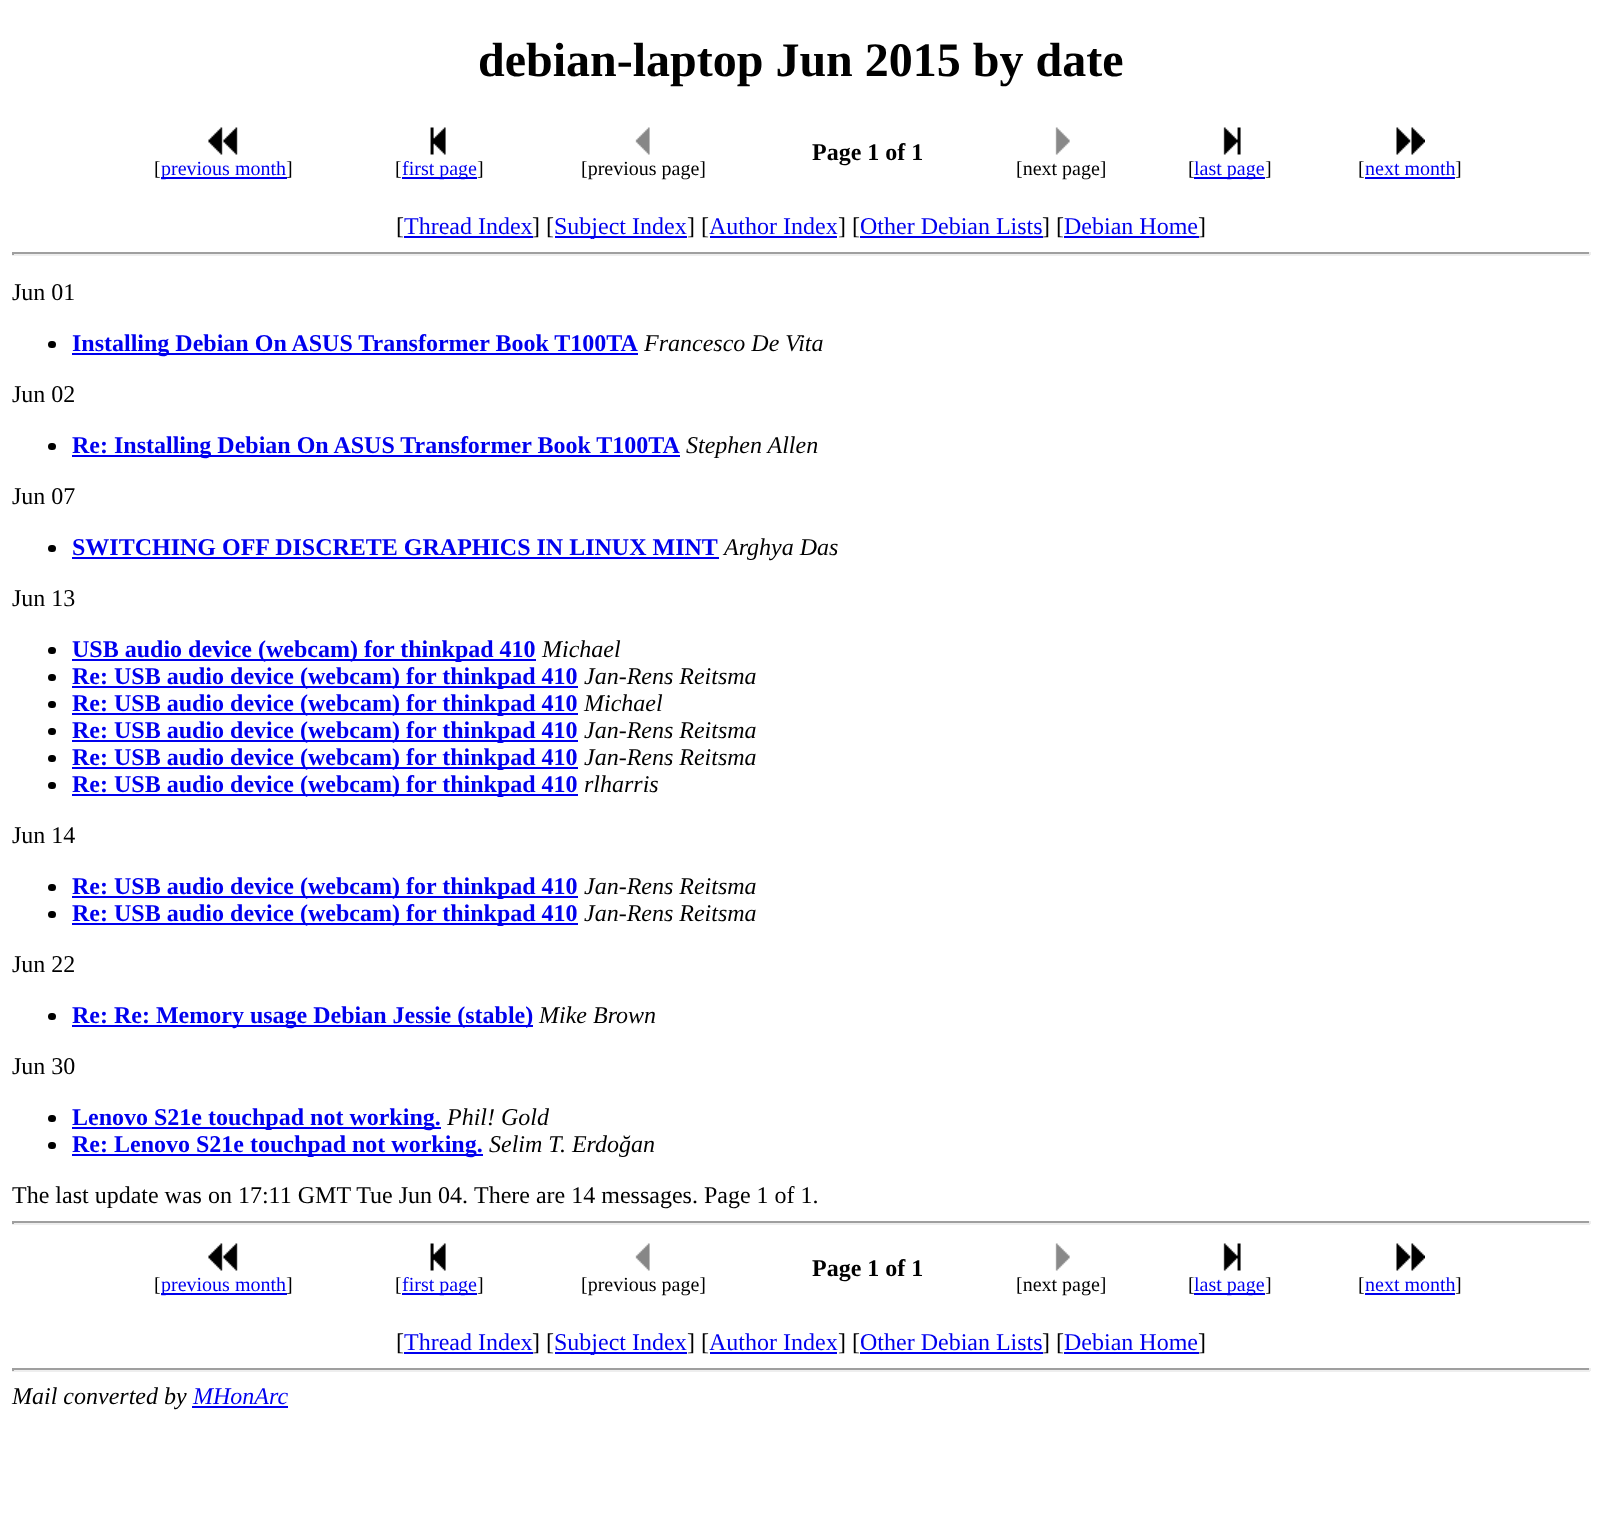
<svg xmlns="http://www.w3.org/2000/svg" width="1601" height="1514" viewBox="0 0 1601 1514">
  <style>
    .t1 { font: bold 48px Liberation Serif; fill: #000; }
    .t2 { font: bold 24px Liberation Serif; fill: #000; }
    .t3 { font: 20px Liberation Serif; fill: #000; }
    .t4 { font: 20px Liberation Serif; fill: #00e; }
    .t5 { font: 24px Liberation Serif; fill: #000; }
    .t6 { font: 24px Liberation Serif; fill: #00e; }
    .t7 { font: bold 24px Liberation Serif; fill: #00e; }
    .t8 { font: italic 24px Liberation Serif; fill: #000; }
    .t9 { font: italic 24px Liberation Serif; fill: #00e; }
  </style>
  <rect width="100%" height="100%" fill="#fff"/>
  <text x="478" y="76" class="t1">debian-laptop Jun 2015 by date</text>
  <text x="812" y="160" class="t2">Page 1 of 1</text>
  <image x="208" y="127" width="30" height="28" href="images/1.png"/>
  <text x="154" y="175" class="t3">[</text>
  <rect x="161" y="177" width="126" height="2" fill="#00e"/>
  <text x="161" y="175" class="t4">previous month</text>
  <text x="286" y="175" class="t3">]</text>
  <image x="430" y="127" width="16" height="28" href="images/2.png"/>
  <text x="395" y="175" class="t3">[</text>
  <rect x="402" y="177" width="75" height="2" fill="#00e"/>
  <text x="402" y="175" class="t4">first page</text>
  <text x="477" y="175" class="t3">]</text>
  <image x="635" y="127" width="15" height="28" href="images/3.png"/>
  <text x="581" y="175" class="t3">[previous page]</text>
  <image x="1055" y="127" width="15" height="28" href="images/4.png"/>
  <text x="1016" y="175" class="t3">[next page]</text>
  <image x="1223" y="127" width="18" height="28" href="images/5.png"/>
  <text x="1188" y="175" class="t3">[</text>
  <rect x="1194" y="177" width="71" height="2" fill="#00e"/>
  <text x="1194" y="175" class="t4">last page</text>
  <text x="1265" y="175" class="t3">]</text>
  <image x="1396" y="127" width="29" height="28" href="images/6.png"/>
  <text x="1358" y="175" class="t3">[</text>
  <rect x="1365" y="177" width="90" height="2" fill="#00e"/>
  <text x="1365" y="175" class="t4">next month</text>
  <text x="1455" y="175" class="t3">]</text>
  <text x="396" y="234" class="t5">[</text>
  <text x="404" y="234" class="t6">Thread Index</text>
  <rect x="404" y="236" width="129" height="2" fill="#00e"/>
  <text x="532" y="234" class="t5">] [</text>
  <rect x="555" y="236" width="132" height="2" fill="#00e"/>
  <text x="554" y="234" class="t6">Subject Index</text>
  <text x="687" y="234" class="t5">] [</text>
  <text x="709" y="234" class="t6">Author Index</text>
  <rect x="710" y="236" width="127" height="2" fill="#00e"/>
  <text x="838" y="234" class="t5">] [</text>
  <text x="860" y="234" class="t6">Other Debian Lists</text>
  <rect x="860" y="236" width="183" height="2" fill="#00e"/>
  <text x="1042" y="234" class="t5">] [</text>
  <text x="1064" y="234" class="t6">Debian Home</text>
  <rect x="1064" y="236" width="135" height="2" fill="#00e"/>
  <text x="1198" y="234" class="t5">]</text>
  <rect x="12" y="252" width="1578" height="2" fill="#9f9f9f"/>
  <rect x="1589" y="252" width="2" height="3" fill="#eee"/>
  <rect x="12" y="254" width="1578" height="2" fill="#eee"/>
  <rect x="12" y="252" width="2" height="3" fill="#9f9f9f"/>
  <text x="12" y="300" class="t5">Jun 01</text>
  <rect x="48" y="341" width="8" height="7" rx="3.5" fill="#000"/>
  <rect x="72" y="353" width="566" height="2" fill="#00e"/>
  <text x="72" y="351" class="t7">Installing Debian On ASUS Transformer Book T100TA</text>
  <text x="644" y="351" class="t8">Francesco De Vita</text>
  <text x="12" y="402" class="t5">Jun 02</text>
  <rect x="48" y="443" width="8" height="7" rx="3.5" fill="#000"/>
  <rect x="72" y="455" width="608" height="2" fill="#00e"/>
  <text x="72" y="453" class="t7">Re: Installing Debian On ASUS Transformer Book T100TA</text>
  <text x="686" y="453" class="t8">Stephen Allen</text>
  <text x="12" y="504" class="t5">Jun 07</text>
  <rect x="48" y="545" width="8" height="7" rx="3.5" fill="#000"/>
  <text x="72" y="555" class="t7">SWITCHING OFF DISCRETE GRAPHICS IN LINUX MINT</text>
  <rect x="72" y="557" width="647" height="2" fill="#00e"/>
  <text x="724" y="555" class="t8">Arghya Das</text>
  <text x="12" y="606" class="t5">Jun 13</text>
  <rect x="48" y="647" width="8" height="7" rx="3.5" fill="#000"/>
  <rect x="72" y="659" width="464" height="2" fill="#00e"/>
  <text x="72" y="657" class="t7">USB audio device (webcam) for thinkpad 410</text>
  <text x="542" y="657" class="t8">Michael</text>
  <rect x="48" y="674" width="8" height="7" rx="3.5" fill="#000"/>
  <rect x="72" y="686" width="506" height="2" fill="#00e"/>
  <text x="72" y="684" class="t7">Re: USB audio device (webcam) for thinkpad 410</text>
  <text x="584" y="684" class="t8">Jan-Rens Reitsma</text>
  <rect x="48" y="701" width="8" height="7" rx="3.5" fill="#000"/>
  <rect x="72" y="713" width="506" height="2" fill="#00e"/>
  <text x="72" y="711" class="t7">Re: USB audio device (webcam) for thinkpad 410</text>
  <text x="584" y="711" class="t8">Michael</text>
  <rect x="48" y="728" width="8" height="7" rx="3.5" fill="#000"/>
  <rect x="72" y="740" width="506" height="2" fill="#00e"/>
  <text x="72" y="738" class="t7">Re: USB audio device (webcam) for thinkpad 410</text>
  <text x="584" y="738" class="t8">Jan-Rens Reitsma</text>
  <rect x="48" y="755" width="8" height="7" rx="3.5" fill="#000"/>
  <rect x="72" y="767" width="506" height="2" fill="#00e"/>
  <text x="72" y="765" class="t7">Re: USB audio device (webcam) for thinkpad 410</text>
  <text x="584" y="765" class="t8">Jan-Rens Reitsma</text>
  <rect x="48" y="782" width="8" height="7" rx="3.5" fill="#000"/>
  <rect x="72" y="794" width="506" height="2" fill="#00e"/>
  <text x="72" y="792" class="t7">Re: USB audio device (webcam) for thinkpad 410</text>
  <text x="584" y="792" class="t8">rlharris</text>
  <text x="12" y="843" class="t5">Jun 14</text>
  <rect x="48" y="884" width="8" height="7" rx="3.5" fill="#000"/>
  <rect x="72" y="896" width="506" height="2" fill="#00e"/>
  <text x="72" y="894" class="t7">Re: USB audio device (webcam) for thinkpad 410</text>
  <text x="584" y="894" class="t8">Jan-Rens Reitsma</text>
  <rect x="48" y="911" width="8" height="7" rx="3.5" fill="#000"/>
  <rect x="72" y="923" width="506" height="2" fill="#00e"/>
  <text x="72" y="921" class="t7">Re: USB audio device (webcam) for thinkpad 410</text>
  <text x="584" y="921" class="t8">Jan-Rens Reitsma</text>
  <text x="12" y="972" class="t5">Jun 22</text>
  <rect x="48" y="1013" width="8" height="7" rx="3.5" fill="#000"/>
  <rect x="72" y="1025" width="461" height="2" fill="#00e"/>
  <text x="72" y="1023" class="t7">Re: Re: Memory usage Debian Jessie (stable)</text>
  <text x="539" y="1023" class="t8">Mike Brown</text>
  <text x="12" y="1074" class="t5">Jun 30</text>
  <rect x="48" y="1115" width="8" height="7" rx="3.5" fill="#000"/>
  <rect x="72" y="1127" width="369" height="2" fill="#00e"/>
  <text x="72" y="1125" class="t7">Lenovo S21e touchpad not working.</text>
  <text x="447" y="1125" class="t8">Phil! Gold</text>
  <rect x="48" y="1142" width="8" height="7" rx="3.5" fill="#000"/>
  <rect x="72" y="1154" width="411" height="2" fill="#00e"/>
  <text x="72" y="1152" class="t7">Re: Lenovo S21e touchpad not working.</text>
  <text x="489" y="1152" class="t8">Selim T. Erdoğan</text>
  <text x="12" y="1203" class="t5">The last update was on 17:11 GMT Tue Jun 04.</text>
  <text x="474" y="1203" class="t5">There are 14 messages. Page 1 of 1.</text>
  <rect x="12" y="1221" width="1578" height="2" fill="#9f9f9f"/>
  <rect x="1589" y="1221" width="2" height="3" fill="#eee"/>
  <rect x="12" y="1223" width="1578" height="2" fill="#eee"/>
  <rect x="12" y="1221" width="2" height="3" fill="#9f9f9f"/>
  <text x="812" y="1276" class="t2">Page 1 of 1</text>
  <image x="208" y="1243" width="30" height="28" href="images/1.png"/>
  <text x="154" y="1291" class="t3">[</text>
  <rect x="161" y="1293" width="126" height="2" fill="#00e"/>
  <text x="161" y="1291" class="t4">previous month</text>
  <text x="286" y="1291" class="t3">]</text>
  <image x="430" y="1243" width="16" height="28" href="images/2.png"/>
  <text x="395" y="1291" class="t3">[</text>
  <rect x="402" y="1293" width="75" height="2" fill="#00e"/>
  <text x="402" y="1291" class="t4">first page</text>
  <text x="477" y="1291" class="t3">]</text>
  <image x="635" y="1243" width="15" height="28" href="images/3.png"/>
  <text x="581" y="1291" class="t3">[previous page]</text>
  <image x="1055" y="1243" width="15" height="28" href="images/4.png"/>
  <text x="1016" y="1291" class="t3">[next page]</text>
  <image x="1223" y="1243" width="18" height="28" href="images/5.png"/>
  <text x="1188" y="1291" class="t3">[</text>
  <rect x="1194" y="1293" width="71" height="2" fill="#00e"/>
  <text x="1194" y="1291" class="t4">last page</text>
  <text x="1265" y="1291" class="t3">]</text>
  <image x="1396" y="1243" width="29" height="28" href="images/6.png"/>
  <text x="1358" y="1291" class="t3">[</text>
  <rect x="1365" y="1293" width="90" height="2" fill="#00e"/>
  <text x="1365" y="1291" class="t4">next month</text>
  <text x="1455" y="1291" class="t3">]</text>
  <text x="396" y="1350" class="t5">[</text>
  <text x="404" y="1350" class="t6">Thread Index</text>
  <rect x="404" y="1352" width="129" height="2" fill="#00e"/>
  <text x="532" y="1350" class="t5">] [</text>
  <rect x="555" y="1352" width="132" height="2" fill="#00e"/>
  <text x="554" y="1350" class="t6">Subject Index</text>
  <text x="687" y="1350" class="t5">] [</text>
  <text x="709" y="1350" class="t6">Author Index</text>
  <rect x="710" y="1352" width="127" height="2" fill="#00e"/>
  <text x="838" y="1350" class="t5">] [</text>
  <text x="860" y="1350" class="t6">Other Debian Lists</text>
  <rect x="860" y="1352" width="183" height="2" fill="#00e"/>
  <text x="1042" y="1350" class="t5">] [</text>
  <text x="1064" y="1350" class="t6">Debian Home</text>
  <rect x="1064" y="1352" width="135" height="2" fill="#00e"/>
  <text x="1198" y="1350" class="t5">]</text>
  <rect x="12" y="1368" width="1578" height="2" fill="#9f9f9f"/>
  <rect x="1589" y="1368" width="2" height="3" fill="#eee"/>
  <rect x="12" y="1370" width="1578" height="2" fill="#eee"/>
  <rect x="12" y="1368" width="2" height="3" fill="#9f9f9f"/>
  <text x="12" y="1404" class="t8">Mail converted by</text>
  <text x="193" y="1404" class="t9">MHonArc</text>
  <rect x="192" y="1406" width="96" height="2" fill="#00e"/>
</svg>
